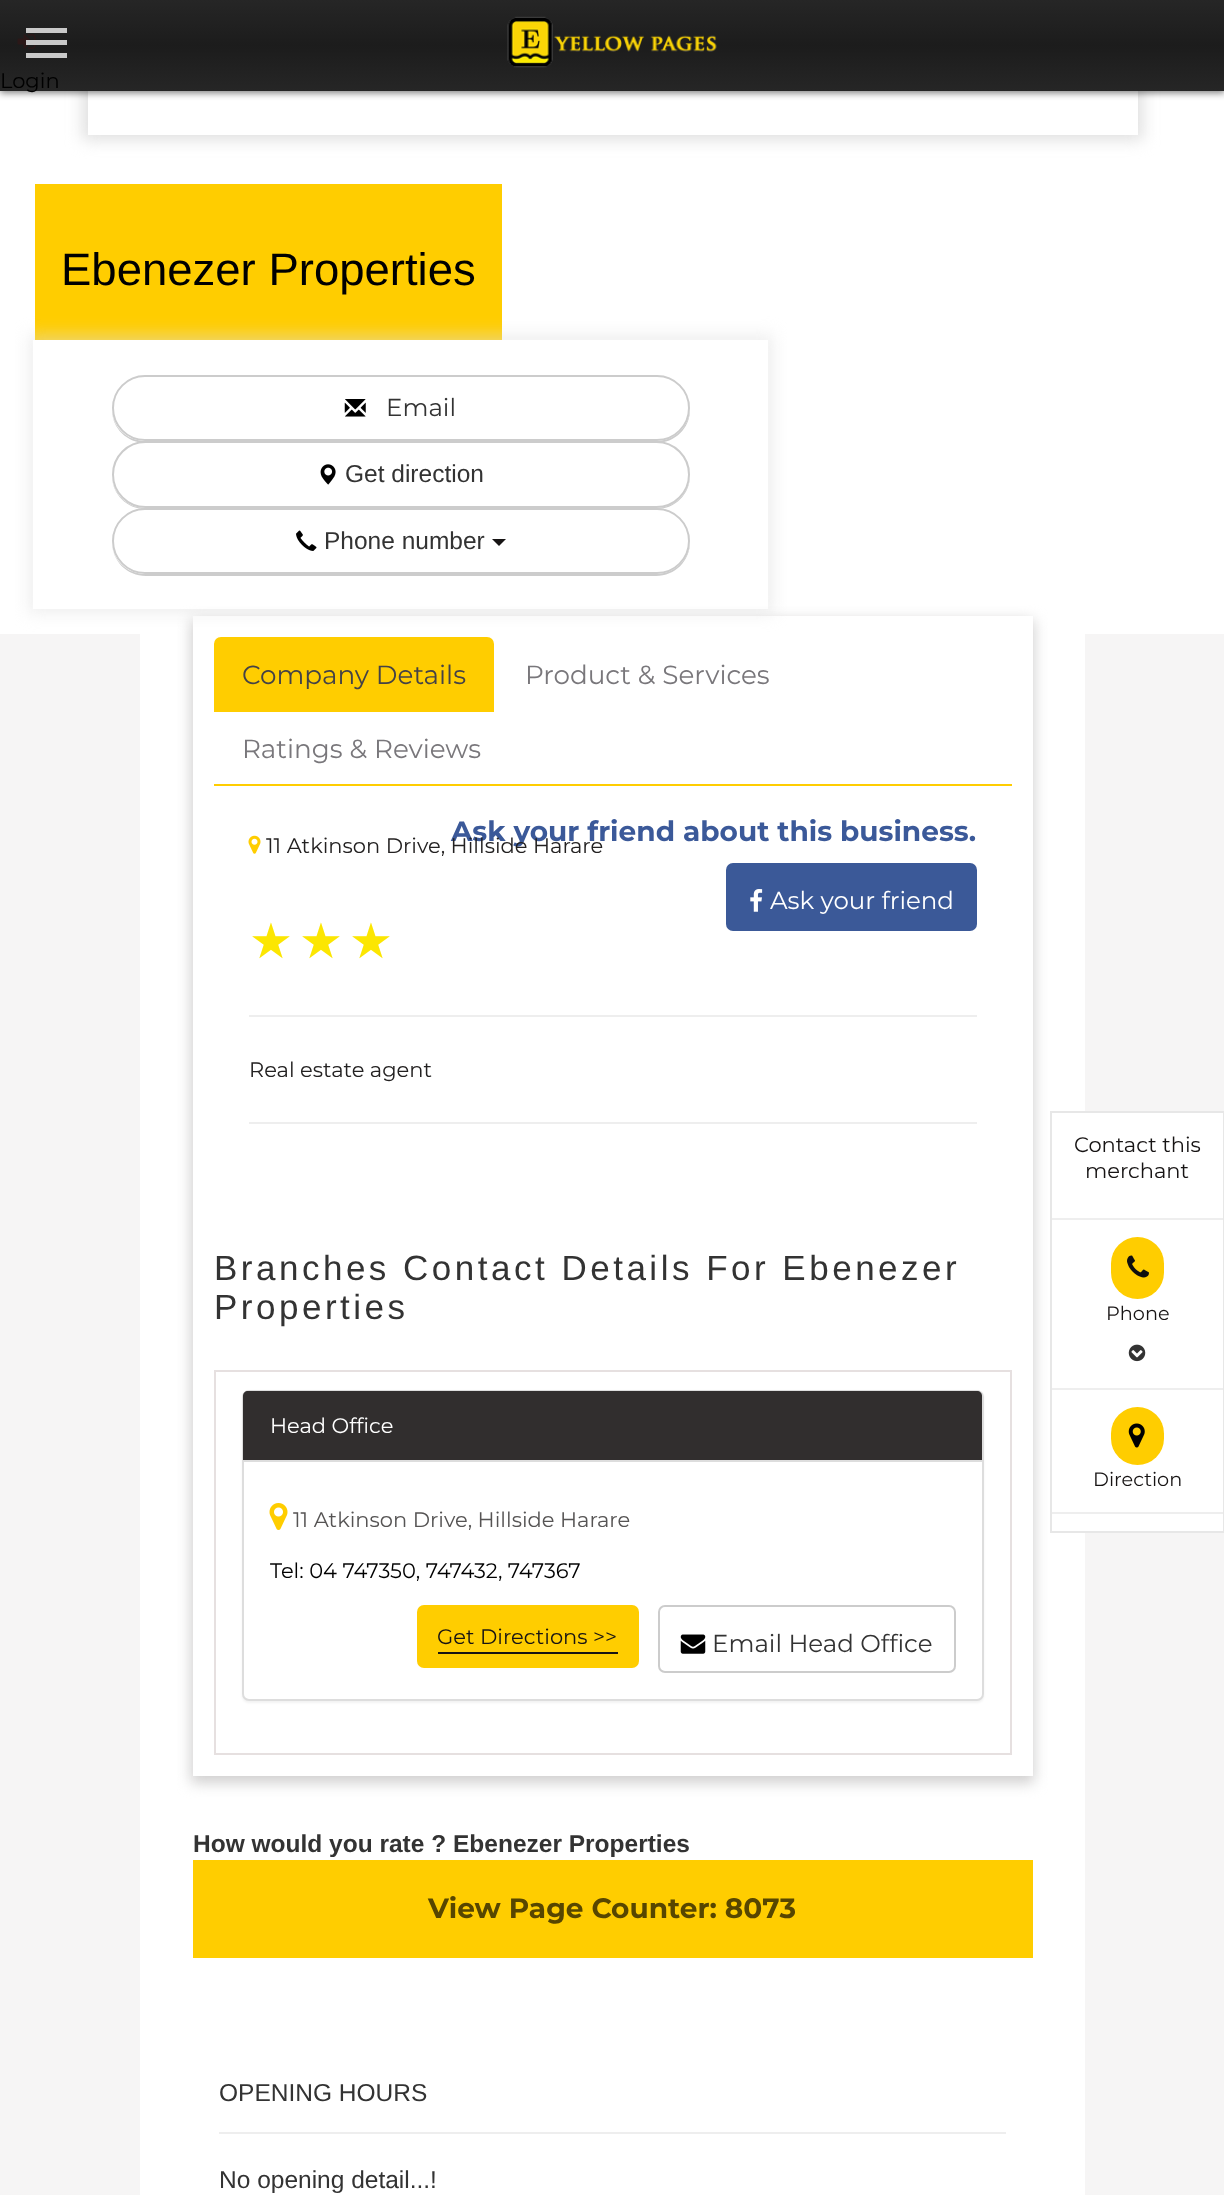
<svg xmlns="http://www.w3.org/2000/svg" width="1224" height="2195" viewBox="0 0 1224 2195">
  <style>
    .t1 { font: 21px Montserrat; fill: #000; }
    .t2 { font: 45.5px Liberation Sans; fill: #000; }
    .t3 { font: 24.5px Montserrat; fill: #333; }
    .t4 { font: 24.5px Liberation Sans; fill: #333; }
    .t5 { font: 26.25px Montserrat; fill: #444246; }
    .t6 { font: 26.25px Montserrat; fill: #79777b; }
    .t7 { font: bold 28px Montserrat; fill: #3b5999; }
    .t8 { font: 21px Montserrat; fill: #232121; }
    .t9 { font: 24.5px Montserrat; fill: #fff; }
    .t10 { font: 49px DejaVu Sans; fill: #fce601; }
    .t11 { font: 35px Liberation Sans; letter-spacing: 3.5px; fill: #333; }
    .t12 { font: 21px Montserrat; fill: #fff; }
    .t13 { font: 21px Montserrat; fill: #565454; }
    .t14 { font: 21px Montserrat; fill: #171414; }
    .t15 { font: bold 24.5px Liberation Sans; fill: #333; }
    .t16 { font: bold 28px Montserrat; fill: #574600; }
    .t17 { font: 19.25px Montserrat; fill: #171414; }
  </style>
  <defs>
    <linearGradient id="g1" gradientUnits="userSpaceOnUse" x1="613" y1="0" x2="613" y2="91"><stop offset="0" stop-color="#262626"/><stop offset="0.5" stop-color="#1c1c1c"/><stop offset="1" stop-color="#262626"/></linearGradient>
    <clipPath id="clip1"><path d="M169 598H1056V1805H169ZM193 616H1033V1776H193Z" clip-rule="evenodd"/></clipPath>
  </defs>
  <rect width="100%" height="100%" fill="#f6f5f5"/>
  <rect x="0" y="91" width="1224" height="543" fill="#fff"/>
  <rect x="82" y="-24" width="1061" height="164" fill="#e0e0e0" filter="blur(8px)"/>
  <rect x="88" y="91" width="1050" height="44" fill="#fff"/>
  <rect x="0" y="2" width="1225" height="91" fill="#00000080" filter="blur(3.5px)"/>
  <rect x="0" y="0" width="1224" height="91" fill="url(#g1)"/>
  <image x="507" y="16" width="210" height="52" href="images/1.png"/>
  <image x="17" y="34" width="19" height="15" href="images/2.png"/>
  <rect x="26" y="40" width="41" height="5" fill="#c9c9c9"/>
  <rect x="26" y="28" width="41" height="5" fill="#c9c9c9"/>
  <rect x="26" y="53" width="41" height="5" fill="#c9c9c9"/>
  <text x="0" y="88" class="t1">Login</text>
  <rect x="35" y="184" width="467" height="156" fill="#ffcd00"/>
  <text x="61" y="285" class="t2">Ebenezer Properties</text>
  <rect x="140" y="634" width="945" height="1561" fill="#fff"/>
  <rect x="28" y="334" width="746" height="280" fill="#e0e0e078" filter="blur(8px)"/>
  <rect x="33" y="340" width="735" height="269" fill="#fff"/>
  <path d="M112 409V410C112 428 127 443 146 443H656C675 443 690 428 690 410C690 406 689 402 688 399C689 402 690 405 690 408C690 426 675 441 656 441H145C127 441 112 427 112 409Z" fill="#ccc"/>
  <rect x="113" y="376" width="576" height="64" rx="32" fill="#fff" stroke="#ccc" stroke-width="2"/>
  <image x="344" y="399" width="22" height="18" href="images/3.png"/>
  <text x="386" y="416" class="t3">Email</text>
  <path d="M112 475V476C112 494 127 509 145 509H657C675 509 690 494 690 476C690 473 689 469 689 466L690 474C690 493 675 508 656 508H145C127 508 112 493 112 475Z" fill="#ccc"/>
  <rect x="113" y="442" width="576" height="65" rx="32.5" fill="#fff" stroke="#ccc" stroke-width="2"/>
  <image x="320" y="464" width="16" height="21" href="images/4.png"/>
  <text x="345" y="482" class="t4">Get direction</text>
  <path d="M112 542C112 561 127 576 146 576H656C675 576 690 561 690 542C690 539 689 535 688 532C689 535 690 538 690 541C690 559 675 574 656 574H145C127 574 112 560 112 542Z" fill="#ccc"/>
  <rect x="113" y="509" width="576" height="64" rx="32" fill="#fff" stroke="#ccc" stroke-width="2"/>
  <image x="296" y="530" width="21" height="21" href="images/5.png"/>
  <text x="324" y="549" class="t4">Phone number</text>
  <path d="M492 539H506L499 546Z" fill="#171414"/>
  <g clip-path="url(#clip1)">
    <rect x="191" y="620" width="843" height="1163" fill="#d0cfcf" filter="blur(7px)"/>
  </g>
  <rect x="214" y="784" width="798" height="2" fill="#ffcd01"/>
  <path d="M221 638H487C490.5 638 493 640.5 493 644V711H215V644C215 640.5 217.5 638 221 638Z" fill="#ffcd00" stroke="#ffcd00" stroke-width="2"/>
  <text x="242" y="684" class="t5">Company Details</text>
  <text x="525" y="684" class="t6">Product &amp; Services</text>
  <text x="242" y="758" class="t6">Ratings &amp; Reviews</text>
  <image x="248" y="835" width="13" height="19" href="images/6.png"/>
  <text x="451" y="841" class="t7">Ask your friend about this business.</text>
  <text x="266" y="853" class="t8">11 Atkinson Drive, Hillside Harare</text>
  <rect x="726" y="863" width="251" height="68" rx="7" fill="#3b5998"/>
  <image x="750" y="889" width="13" height="23" href="images/7.png"/>
  <text x="770" y="909" class="t9">Ask your friend</text>
  <text x="249" y="958" class="t10">★</text>
  <text x="299" y="958" class="t10">★</text>
  <text x="349" y="958" class="t10">★</text>
  <rect x="249" y="1015" width="728" height="2" fill="#eee"/>
  <text x="249" y="1077" class="t8">Real estate agent</text>
  <rect x="249" y="1122" width="728" height="2" fill="#eee"/>
  <text x="214" y="1280" class="t11">Branches Contact Details For Ebenezer</text>
  <text x="214" y="1319" class="t11">Properties</text>
  <rect x="215" y="1371" width="796" height="383" fill="none" stroke="#e6e0e0" stroke-width="2"/>
  <rect x="242" y="1391" width="742" height="312" rx="7" fill="#0000000d" filter="blur(1px)"/>
  <rect x="243" y="1391" width="740" height="309" rx="6" fill="#fff" stroke="#ddd" stroke-width="2"/>
  <path d="M248 1391H977C980 1391 982 1393 982 1396V1460H243V1396C243 1393 245 1391 248 1391Z" fill="#312e2e"/>
  <text x="270" y="1433" class="t12">Head Office</text>
  <rect x="243" y="1460" width="739" height="2" fill="#ddd"/>
  <image x="269" y="1503" width="19" height="27" href="images/8.png"/>
  <text x="293" y="1527" class="t13">11 Atkinson Drive, Hillside Harare</text>
  <text x="270" y="1578" class="t1">Tel: 04 747350, 747432, 747367</text>
  <rect x="417" y="1605" width="222" height="63" rx="7" fill="#ffcd00"/>
  <rect x="438" y="1652" width="180" height="2" fill="#171414"/>
  <text x="437" y="1644" class="t14">Get Directions &gt;&gt;</text>
  <rect x="659" y="1606" width="296" height="66" rx="6" fill="none" stroke="#ccc" stroke-width="2"/>
  <image x="680" y="1634" width="26" height="20" href="images/9.png"/>
  <text x="712" y="1652" class="t3">Email Head Office</text>
  <text x="193" y="1852" class="t15">How would you rate ? Ebenezer Properties</text>
  <rect x="193" y="1860" width="840" height="98" fill="#ffcd00"/>
  <text x="428" y="1918" class="t16">View Page Counter: 8073</text>
  <text x="219" y="2101" class="t4">OPENING HOURS</text>
  <rect x="219" y="2132" width="787" height="2" fill="#eee"/>
  <text x="219" y="2188" class="t4">No opening detail...!</text>
  <rect x="1085" y="1113" width="138" height="418" fill="#fff"/>
  <rect x="1051" y="1112" width="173" height="420" fill="none" stroke="#e7e7e7" stroke-width="2"/>
  <text x="1074" y="1152" class="t14">Contact this</text>
  <text x="1085" y="1178" class="t14">merchant</text>
  <rect x="1052" y="1218" width="171" height="2" fill="#eee"/>
  <rect x="1111" y="1237" width="53" height="62" rx="26.5" fill="#ffcd00"/>
  <image x="1127" y="1255" width="22" height="23" href="images/10.png"/>
  <text x="1106" y="1320" class="t17">Phone</text>
  <image x="1128" y="1344" width="18" height="18" href="images/11.png"/>
  <rect x="1052" y="1388" width="171" height="2" fill="#eee"/>
  <rect x="1111" y="1407" width="53" height="58" rx="26.5" fill="#ffcd00"/>
  <image x="1128" y="1423" width="17" height="25" href="images/12.png"/>
  <text x="1093" y="1486" class="t17">Direction</text>
  <rect x="1052" y="1512" width="171" height="2" fill="#eee"/>
</svg>
